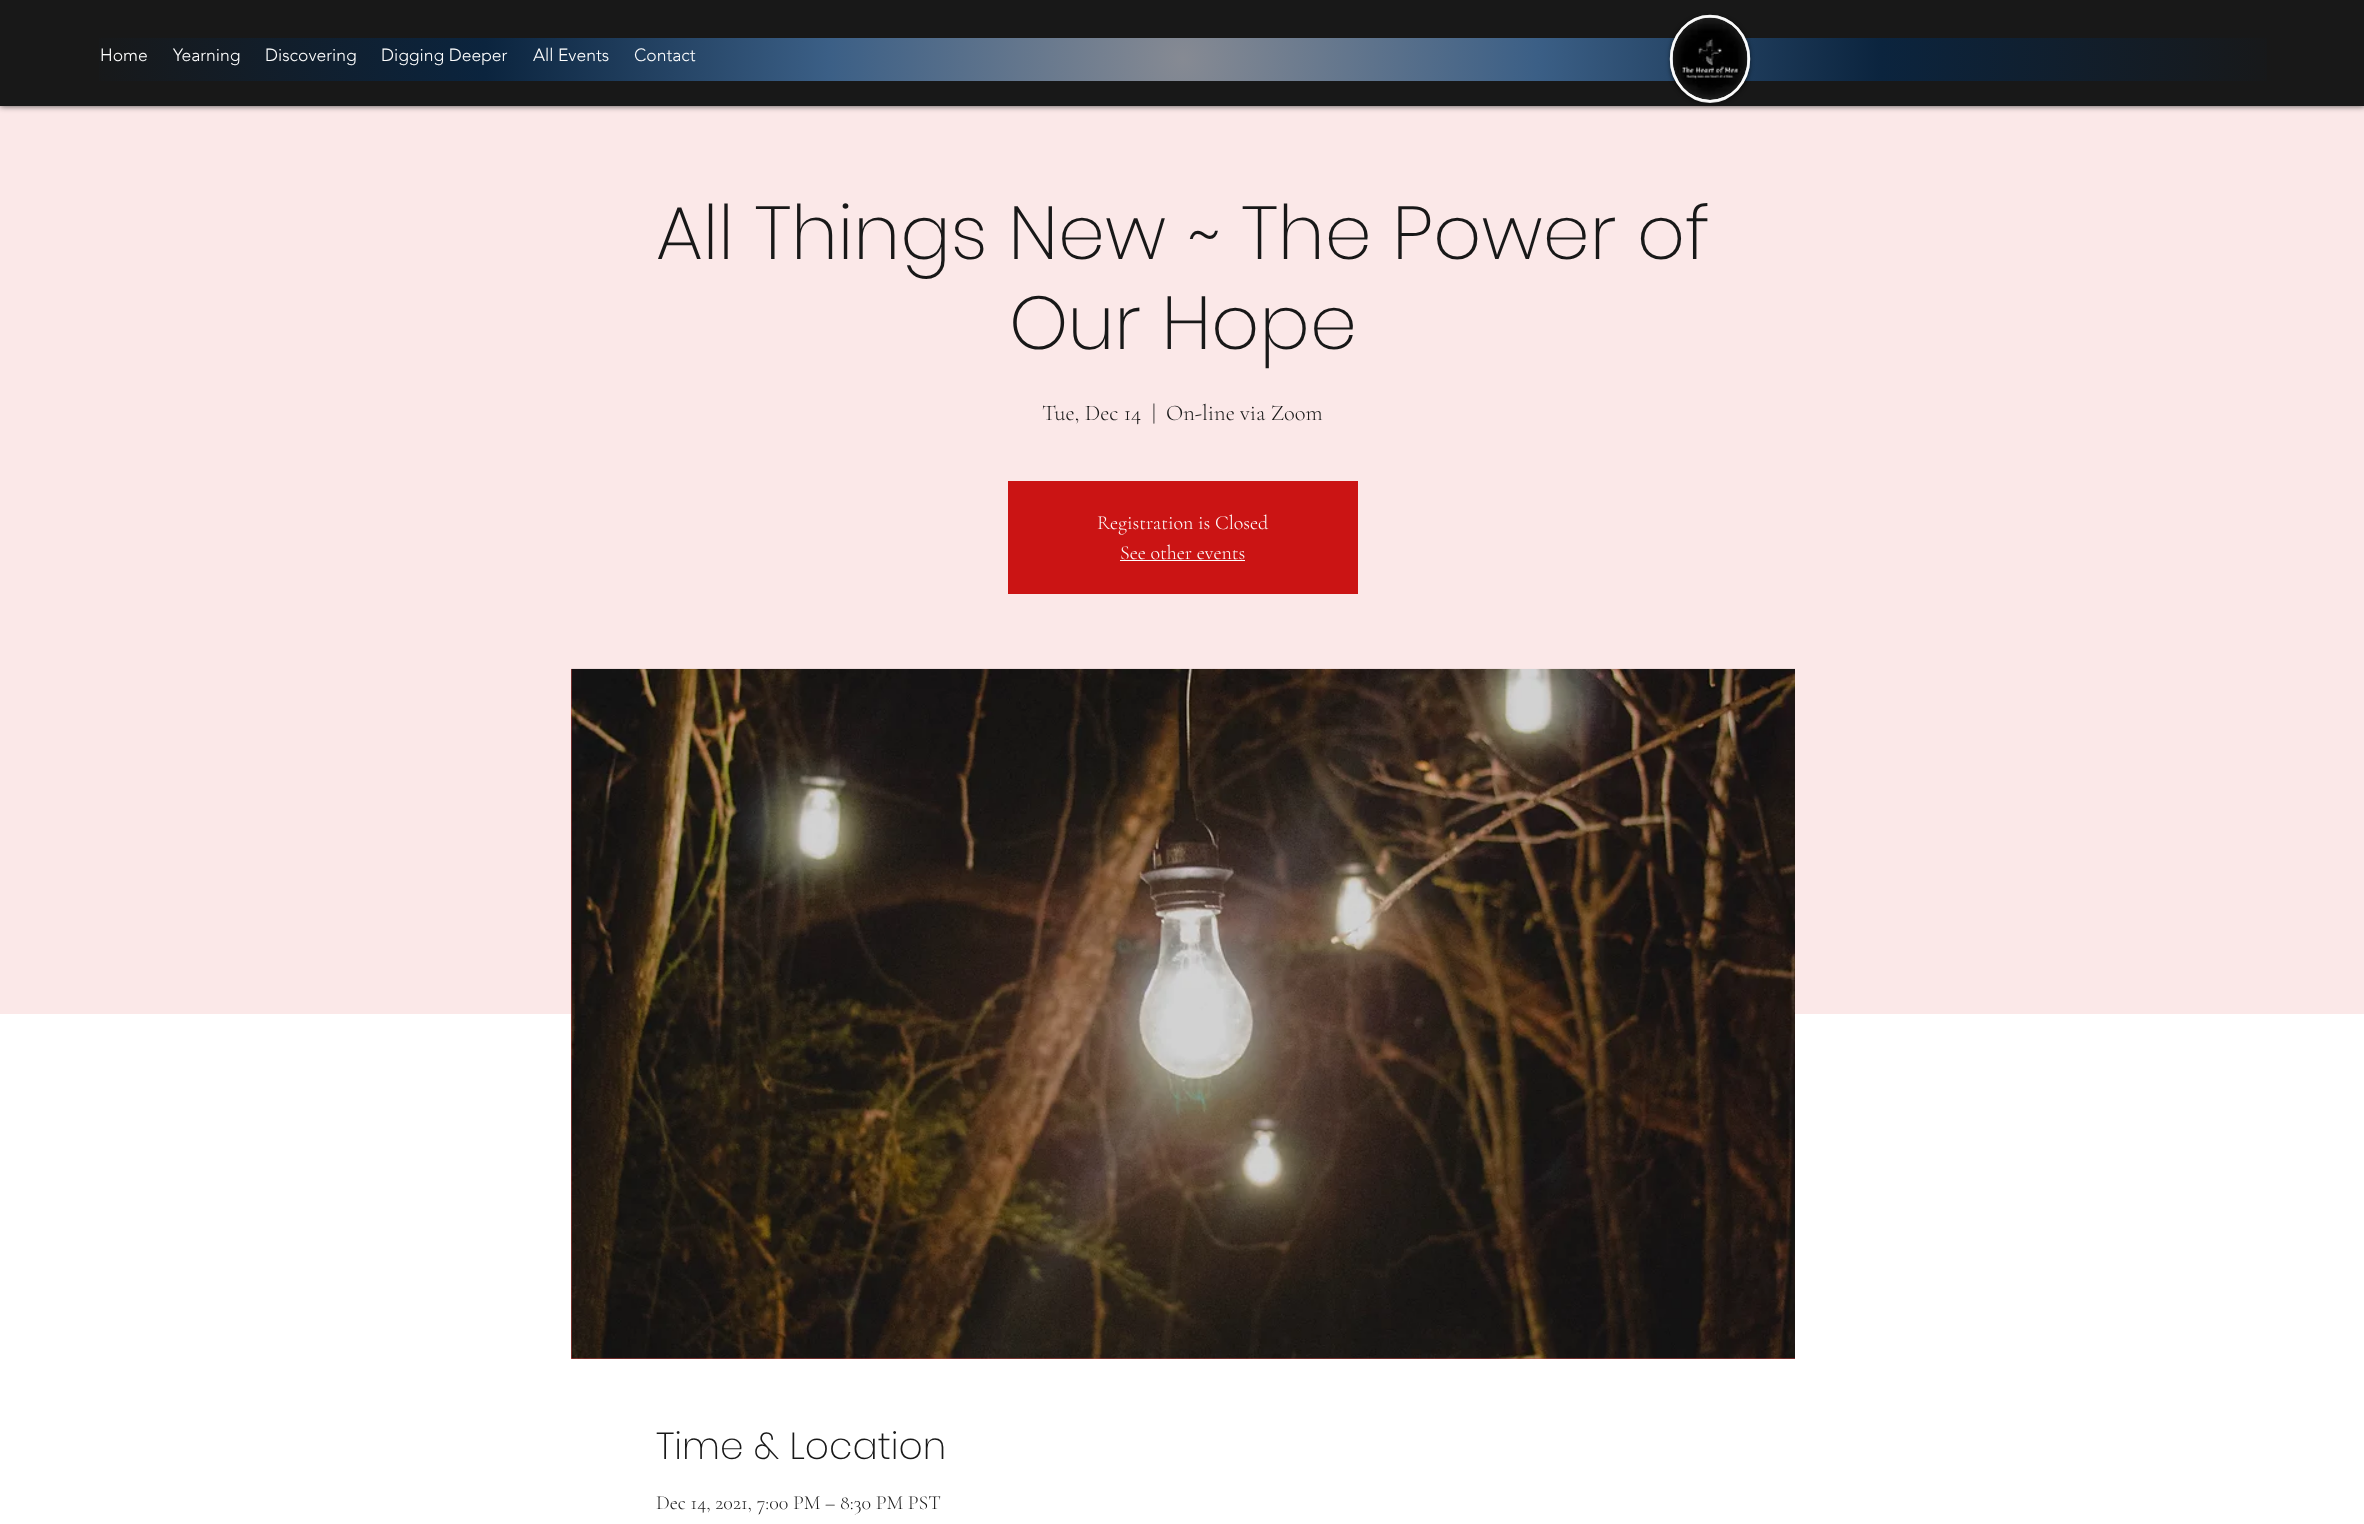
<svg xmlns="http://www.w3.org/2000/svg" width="2364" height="1524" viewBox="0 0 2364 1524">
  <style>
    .t1 { font: 300 17.5px 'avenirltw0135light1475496'; fill: #fff; }
    .t2 { font: 200 75px Poppins; fill: #181818; }
    .t3 { font: 300 22.5px Cormorant Garamond; fill: #181818; }
    .t4 { font: 300 20px Cormorant Garamond; fill: #fff; }
    .t5 { font: 200 37.5px Poppins; fill: #181818; }
    .t6 { font: 300 20px Cormorant Garamond; fill: #181818; }
  </style>
  <defs>
    <radialGradient id="g1" gradientUnits="userSpaceOnUse" cx="1183" cy="59" r="1108"><stop offset="0" stop-color="#868a93"/><stop offset="0.32" stop-color="#3b5f86"/><stop offset="0.63" stop-color="#0b243e"/><stop offset="1" stop-color="#181818"/></radialGradient>
    <clipPath id="clip1"><path d="M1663 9H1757V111H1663ZM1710 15C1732 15 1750 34.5 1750 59C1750 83 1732 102.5 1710 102.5C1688 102.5 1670 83 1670 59C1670 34.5 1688 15 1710 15Z" clip-rule="evenodd"/></clipPath>
  </defs>
  <rect width="100%" height="100%" fill="#fff"/>
  <rect x="0" y="106" width="2364" height="908" fill="#fbe8e8"/>
  <rect x="0" y="0" width="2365" height="106" fill="#000000b3" filter="blur(3px)"/>
  <rect x="0" y="0" width="2364" height="106" fill="#181818"/>
  <rect x="99" y="38" width="2168" height="43" fill="url(#g1)"/>
  <text x="100" y="61" class="t1">Home</text>
  <text x="173" y="61" class="t1">Yearning</text>
  <text x="265" y="61" class="t1">Discovering</text>
  <text x="381" y="61" class="t1">Digging Deeper</text>
  <text x="533" y="61" class="t1">All Events</text>
  <text x="634" y="61" class="t1">Contact</text>
  <g clip-path="url(#clip1)">
    <rect x="1670" y="16" width="80" height="88" rx="40" fill="#00000080" filter="blur(2px)"/>
  </g>
  <ellipse cx="1710" cy="59" rx="40" ry="44" fill="#ffffffd9"/>
  <path d="M1710 16C1731.5 16 1749 35.5 1749 59C1749 82 1731.5 101 1710 101C1688.5 101 1671 82 1671 59C1671 35.5 1688.5 16 1710 16Z" fill="none" stroke="#ffffffd9" stroke-width="2.5"/>
  <image x="1672" y="17" width="76" height="83" href="images/1.png"/>
  <text x="656" y="259" class="t2">All Things New ~ The Power of</text>
  <text x="1009" y="349" class="t2">Our Hope</text>
  <text x="1042" y="420" class="t3">Tue, Dec 14</text>
  <text x="1152" y="420" class="t3">|</text>
  <text x="1166" y="420" class="t3">On-line via Zoom</text>
  <rect x="1008" y="481" width="350" height="113" fill="#cb1414"/>
  <text x="1097" y="529" class="t4">Registration is Closed</text>
  <text x="1120" y="559" class="t4">See other events</text>
  <rect x="1120" y="560" width="125" height="1" fill="#fff"/>
  <rect x="571" y="669" width="1224" height="690" fill="#ee5151"/>
  <image x="571" y="668" width="1224" height="691" href="images/2.png"/>
  <text x="656" y="1459" class="t5">Time &amp; Location</text>
  <text x="656" y="1509" class="t6">Dec 14, 2021, 7:00 PM – 8:30 PM PST</text>
</svg>
